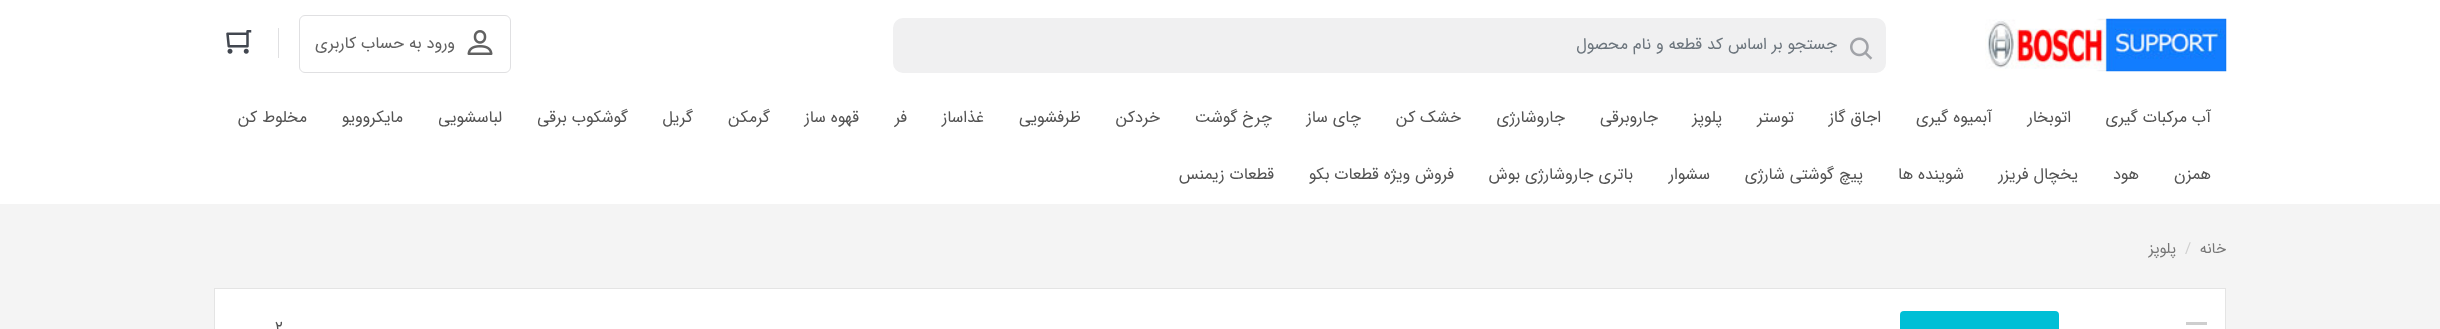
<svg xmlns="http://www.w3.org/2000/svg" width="2440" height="329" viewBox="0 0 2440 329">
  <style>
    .t1 { font: 16.25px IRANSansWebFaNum; direction: rtl; fill: #6c757d; }
    .t2 { font: 16.25px IRANSansWebFaNum; direction: rtl; fill: #616161; }
    .t3 { font: 16.25px IRANSansWebFaNum; direction: rtl; fill: #535353; }
    .t4 { font: 15px IRANSansWebFaNum; direction: rtl; fill: #767676; }
    .t5 { font: 15px IRANSansWebFaNum; fill: #cfcfcf; }
    .t6 { font: 16.25px IRANSansWebFaNum; fill: #535353; }
  </style>
  <rect width="100%" height="100%" fill="#f4f4f4"/>
  <rect x="0" y="0" width="2440" height="204" fill="#fff"/>
  <image x="1985" y="18" width="242" height="54" href="images/1.png"/>
  <rect x="893" y="18" width="993" height="55" rx="10" fill="#f0f0f1"/>
  <image x="1850" y="37" width="23" height="23" href="images/2.png"/>
  <text x="1837" y="49" class="t1">جستجو بر اساس کد قطعه و نام محصول</text>
  <rect x="299.5" y="15.5" width="211" height="57" rx="5.5" fill="none" stroke="#e0e0e2"/>
  <image x="467" y="30" width="26" height="25" href="images/3.png"/>
  <text x="455" y="48" class="t2">ورود به حساب کاربری</text>
  <rect x="278" y="28" width="1" height="30" fill="#e0e0e2"/>
  <image x="226" y="30" width="26" height="24" href="images/4.png"/>
  <text x="2211" y="122" class="t3">آب مرکبات گیری</text>
  <text x="2071" y="122" class="t3">اتوبخار</text>
  <text x="1992" y="122" class="t3">آبمیوه گیری</text>
  <text x="1881" y="122" class="t3">اجاق گاز</text>
  <text x="1794" y="122" class="t3">توستر</text>
  <text x="1722" y="122" class="t3">پلوپز</text>
  <text x="1658" y="122" class="t3">جاروبرقی</text>
  <text x="1565" y="122" class="t3">جاروشارژی</text>
  <text x="1461" y="122" class="t3">خشک کن</text>
  <text x="1361" y="122" class="t3">چای ساز</text>
  <text x="1272" y="122" class="t3">چرخ گوشت</text>
  <text x="1160" y="122" class="t3">خردکن</text>
  <text x="1081" y="122" class="t3">ظرفشویی</text>
  <text x="984" y="122" class="t3">غذاساز</text>
  <text x="907" y="122" class="t3">فر</text>
  <text x="859" y="122" class="t3">قهوه ساز</text>
  <text x="770" y="122" class="t3">گرمکن</text>
  <text x="693" y="122" class="t3">گریل</text>
  <text x="628" y="122" class="t3">گوشکوب برقی</text>
  <text x="502" y="122" class="t3">لباسشویی</text>
  <text x="403" y="122" class="t3">مایکروویو</text>
  <text x="307" y="122" class="t3">مخلوط کن</text>
  <text x="2211" y="179" class="t3">همزن</text>
  <text x="2139" y="179" class="t3">هود</text>
  <text x="2078" y="179" class="t3">یخچال فریزر</text>
  <text x="1964" y="179" class="t3">شوینده ها</text>
  <text x="1863" y="179" class="t3">پیچ گوشتی شارژی</text>
  <text x="1710" y="179" class="t3">سشوار</text>
  <text x="1633" y="179" class="t3">باتری جاروشارژی بوش</text>
  <text x="1454" y="179" class="t3">فروش ویژه قطعات بکو</text>
  <text x="1274" y="179" class="t3">قطعات زیمنس</text>
  <text x="2226" y="253" class="t4">خانه</text>
  <text x="2185" y="253" class="t5">/</text>
  <text x="2176" y="253" class="t4">پلوپز</text>
  <rect x="214.5" y="288.5" width="2011" height="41" fill="#fff" stroke="#e4e4e4"/>
  <rect x="2186" y="322" width="21" height="3" fill="#cecece"/>
  <rect x="1900" y="311" width="159" height="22" rx="4" fill="#00bfd6"/>
  <text x="275" y="332" class="t6">2</text>
</svg>
